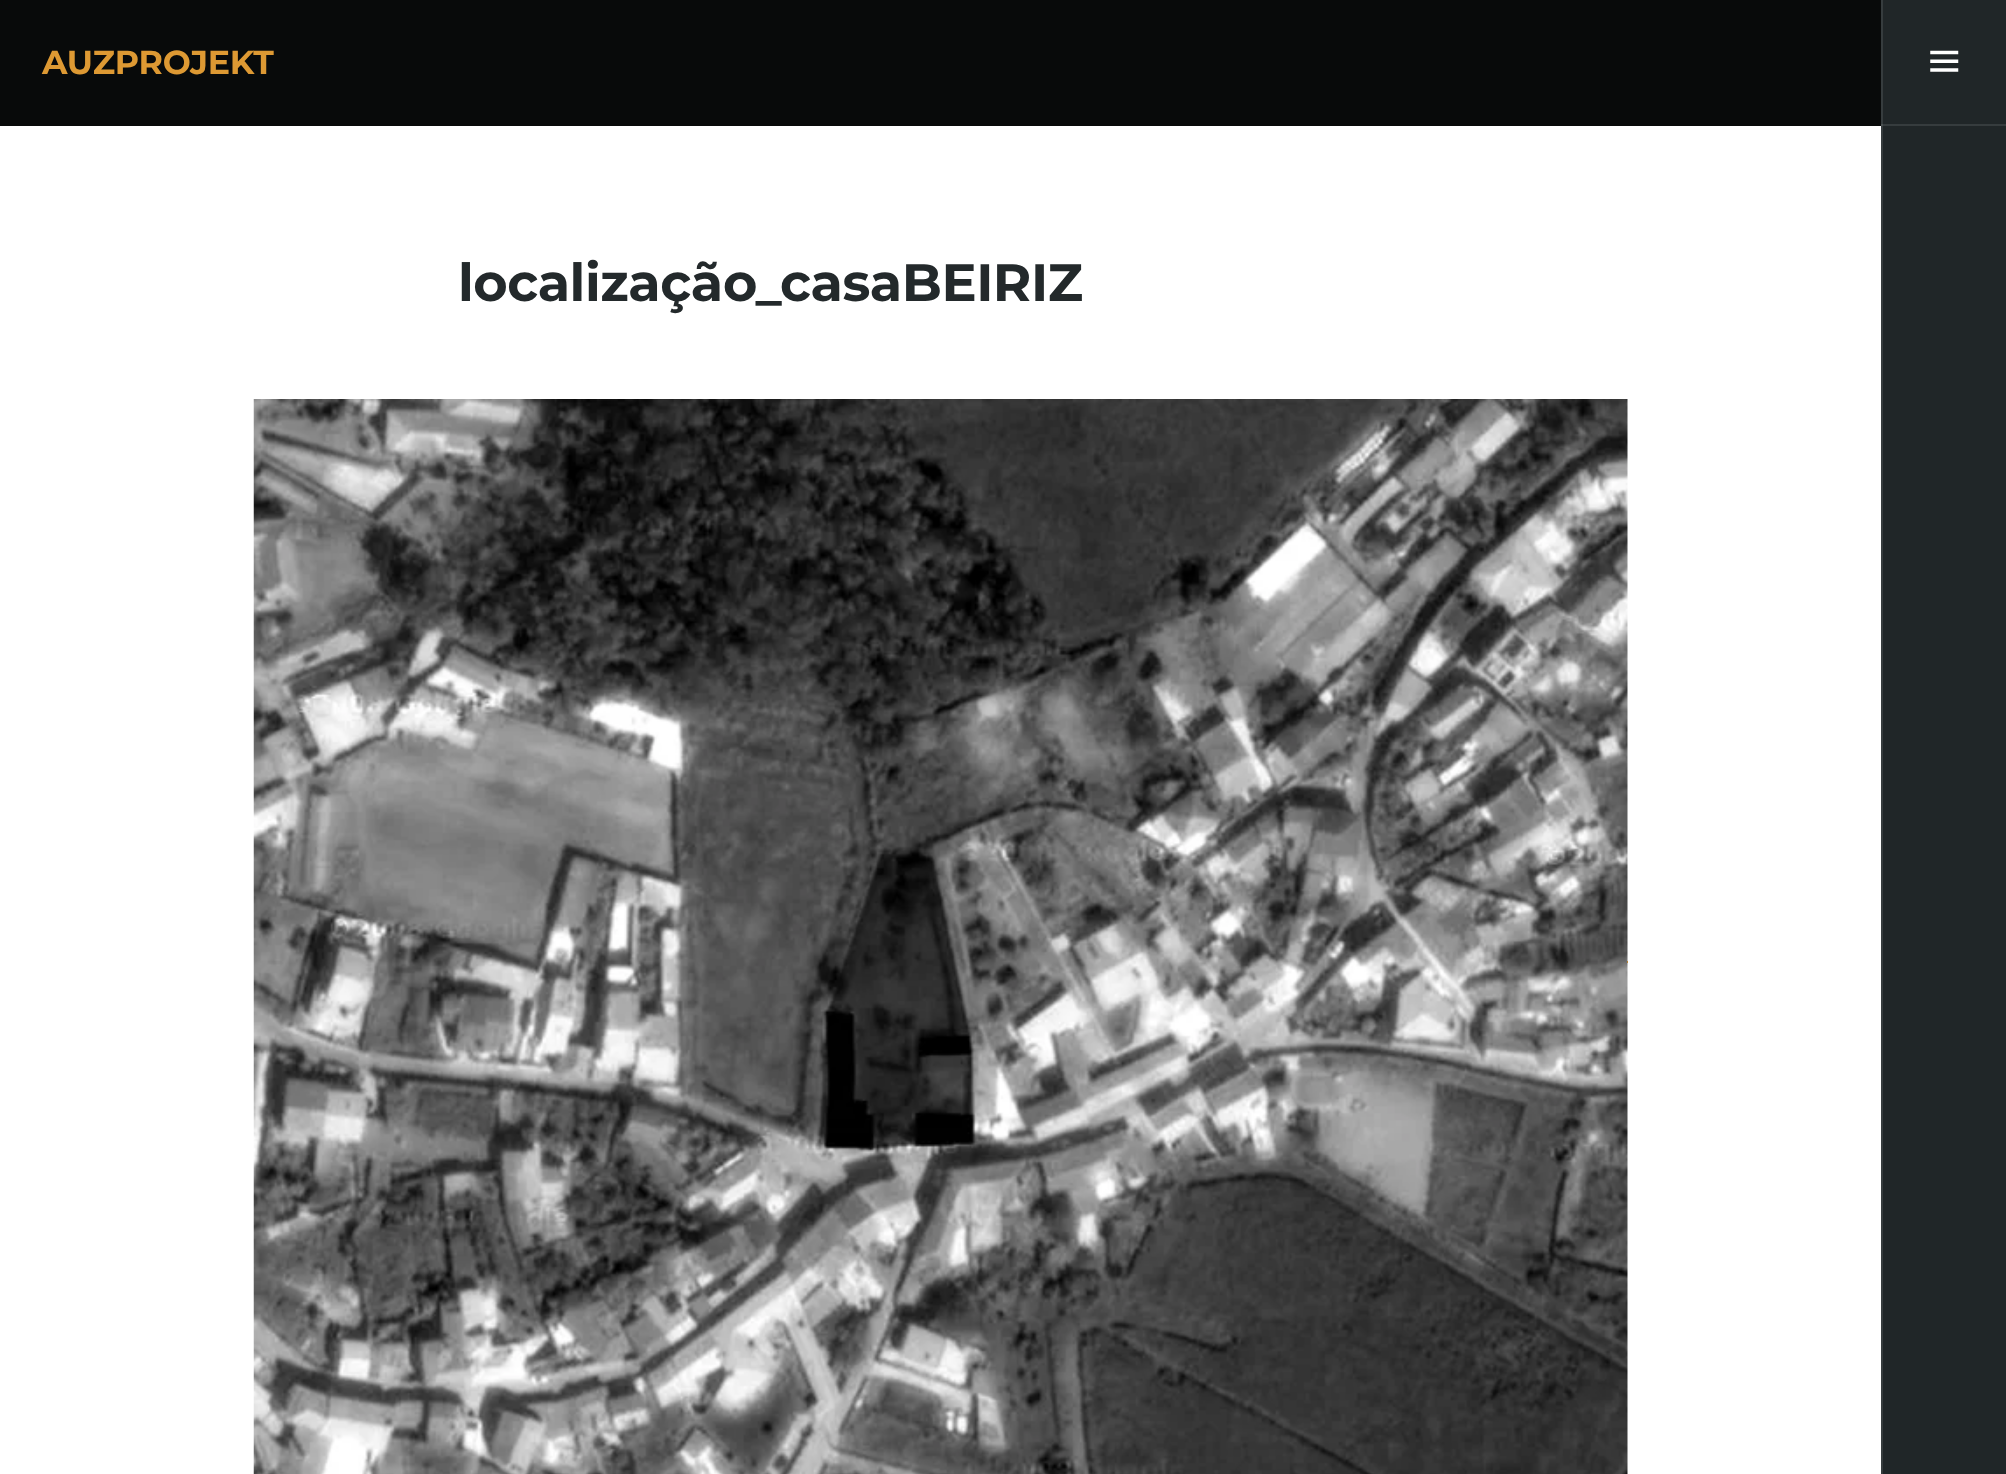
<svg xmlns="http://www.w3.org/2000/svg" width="2006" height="1474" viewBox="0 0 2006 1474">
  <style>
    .t1 { font: bold 33.25px Montserrat; letter-spacing: -0.25px; fill: #d93; }
    .t2 { font: bold 52.5px Montserrat; letter-spacing: -0.5px; fill: #23292b; }
  </style>
  <rect width="100%" height="100%" fill="#fff"/>
  <rect x="0" y="0" width="1881" height="126" fill="#080a0a"/>
  <text x="42" y="74" class="t1">AUZPROJEKT</text>
  <rect x="1883" y="0" width="123" height="1474" fill="#202628"/>
  <image x="1930" y="50" width="29" height="22" href="images/1.png"/>
  <text x="458" y="301" class="t2">localização_casaBEIRIZ</text>
  <rect x="1627" y="961" width="1" height="2" fill="#ff9a00"/>
  <image x="253" y="399" width="1375" height="1075" href="images/2.png"/>
  <rect x="1881" y="124" width="125" height="2" fill="#363c3e"/>
  <rect x="1881" y="0" width="2" height="1474" fill="#363c3e"/>
  <rect x="1881" y="124" width="2" height="2" fill="#4a5051"/>
</svg>
